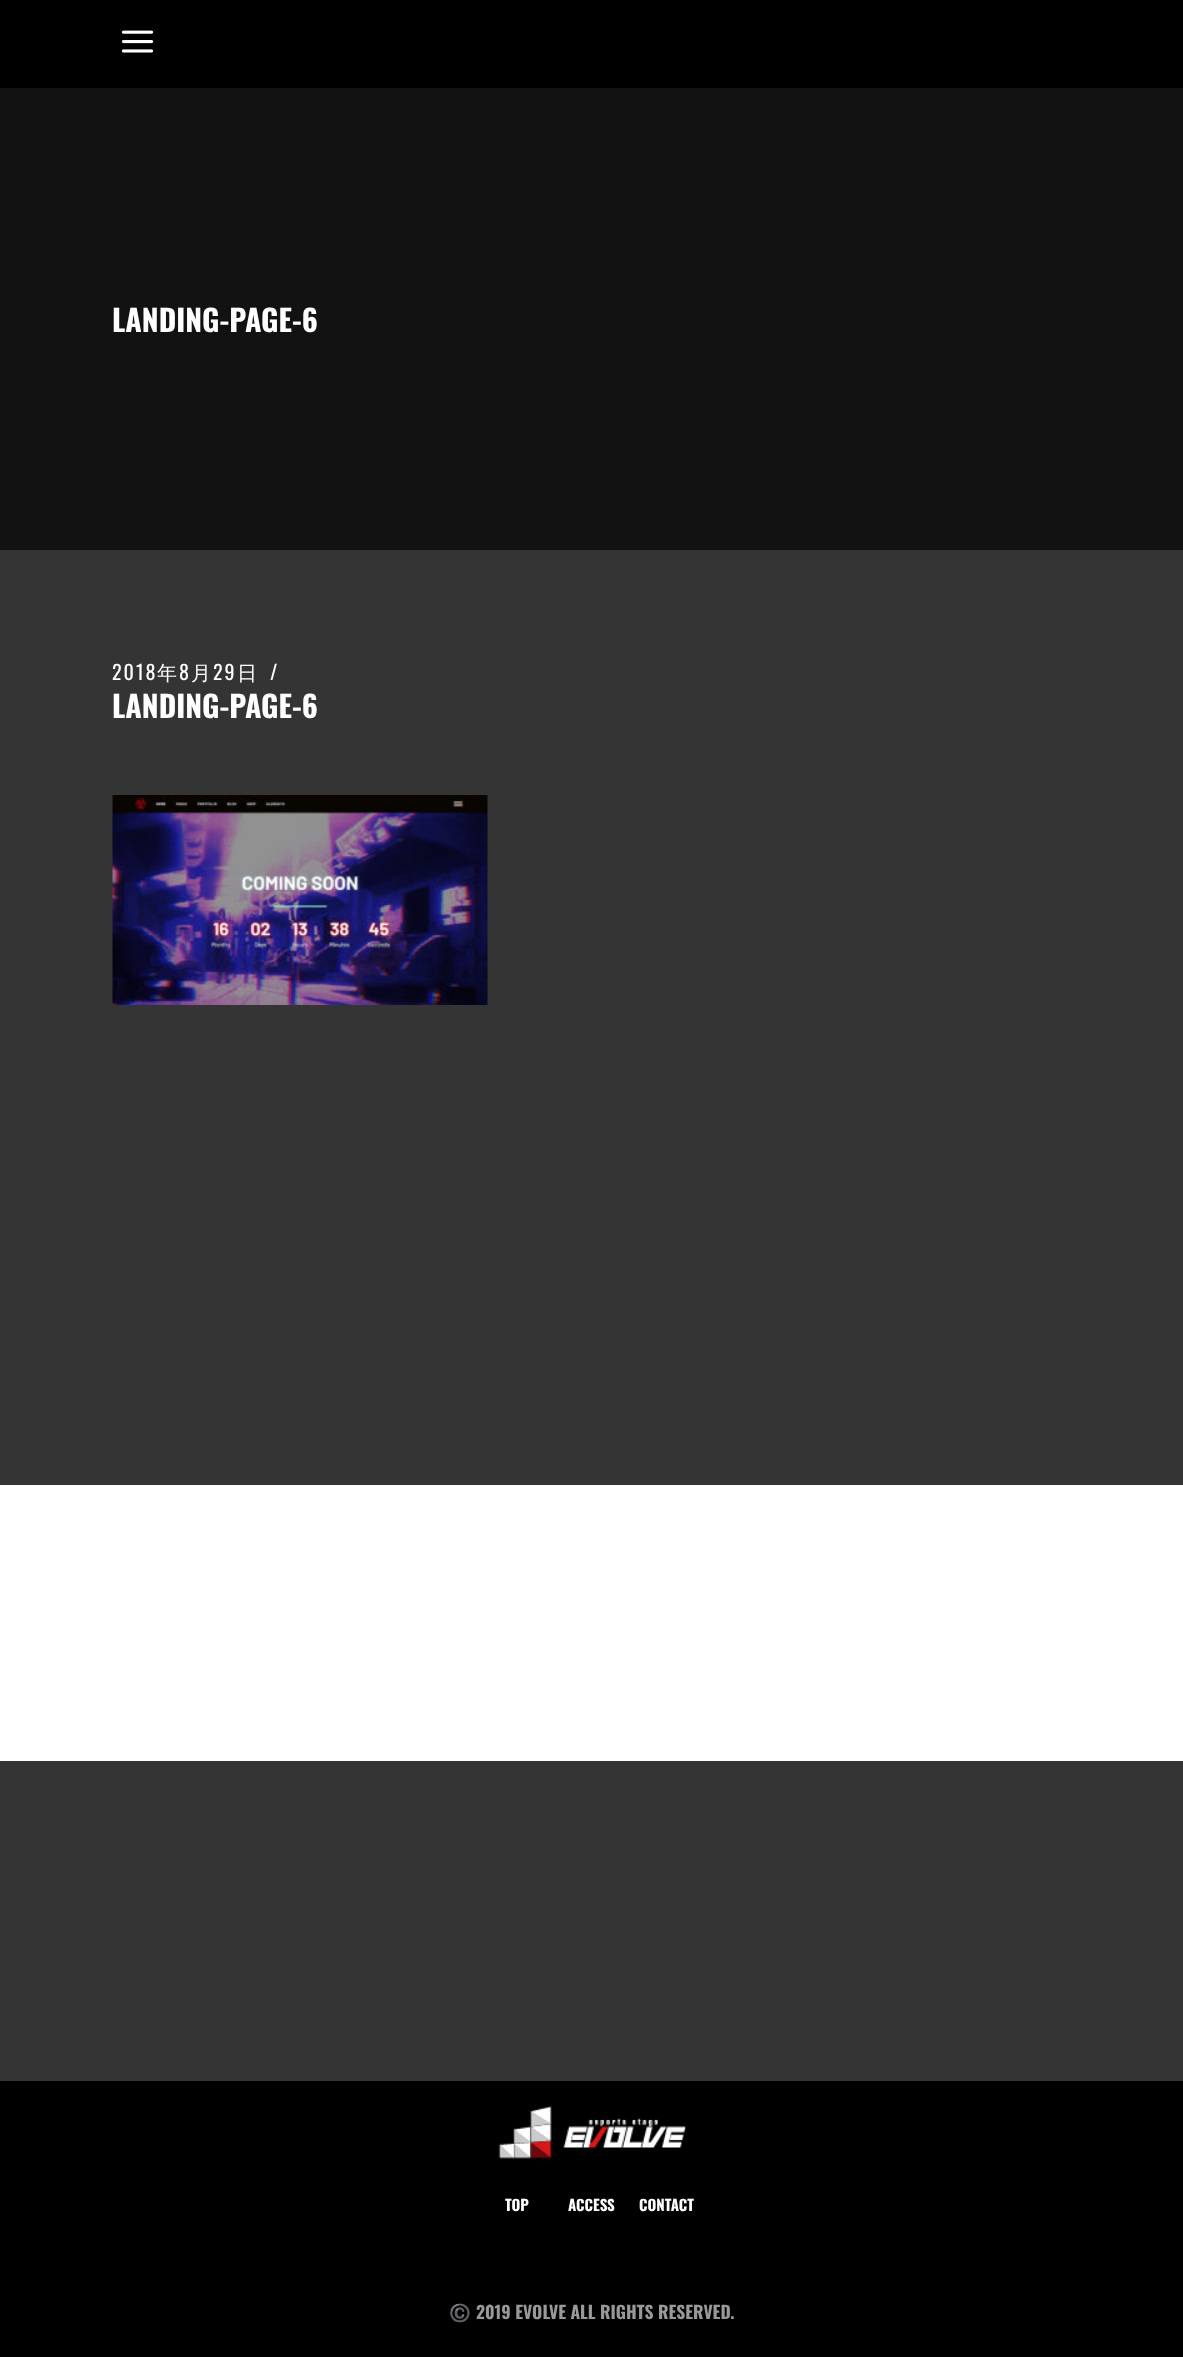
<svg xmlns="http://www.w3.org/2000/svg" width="1183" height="2357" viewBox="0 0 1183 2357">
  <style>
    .t1 { font: bold 30px Oswald; fill: #fff; }
    .t2 { font: 20px Oswald; letter-spacing: 2px; fill: #fff; }
    .t3 { font: 500 20px WenQuanYi Zen Hei; letter-spacing: 2px; fill: #fff; }
    .t4 { font: bold 15px Oswald; fill: #fff; }
    .t5 { font: bold 17.5px Noto Color Emoji; fill: #999; }
    .t6 { font: bold 17.5px Oswald; fill: #999; }
  </style>
  <rect width="100%" height="100%" fill="#343434"/>
  <rect x="0" y="1485" width="1183" height="276" fill="#fff"/>
  <rect x="0" y="0" width="1183" height="88" fill="#000"/>
  <image x="121" y="30" width="33" height="23" href="images/1.png"/>
  <rect x="0" y="88" width="1183" height="462" fill="#121212"/>
  <text x="112" y="332" class="t1">LANDING-PAGE-6</text>
  <text x="112" y="680" class="t2">2018</text>
  <text x="157" y="680" class="t3">年</text>
  <text x="179" y="680" class="t2">8</text>
  <text x="191" y="680" class="t3">月</text>
  <text x="213" y="680" class="t2">29</text>
  <text x="237" y="680" class="t3">日</text>
  <text x="270" y="680" class="t2">/</text>
  <text x="112" y="718" class="t1">LANDING-PAGE-6</text>
  <image x="112" y="795" width="376" height="210" href="images/2.png"/>
  <rect x="0" y="2081" width="1183" height="276" fill="#000"/>
  <image x="498" y="2106" width="189" height="53" href="images/3.png"/>
  <text x="505" y="2211" class="t4">TOP</text>
  <text x="568" y="2211" class="t4">ACCESS</text>
  <text x="639" y="2211" class="t4">CONTACT</text>
  <text x="449" y="2319" class="t5">©️</text>
  <text x="476" y="2319" class="t6">2019 EVOLVE ALL RIGHTS RESERVED.</text>
</svg>
